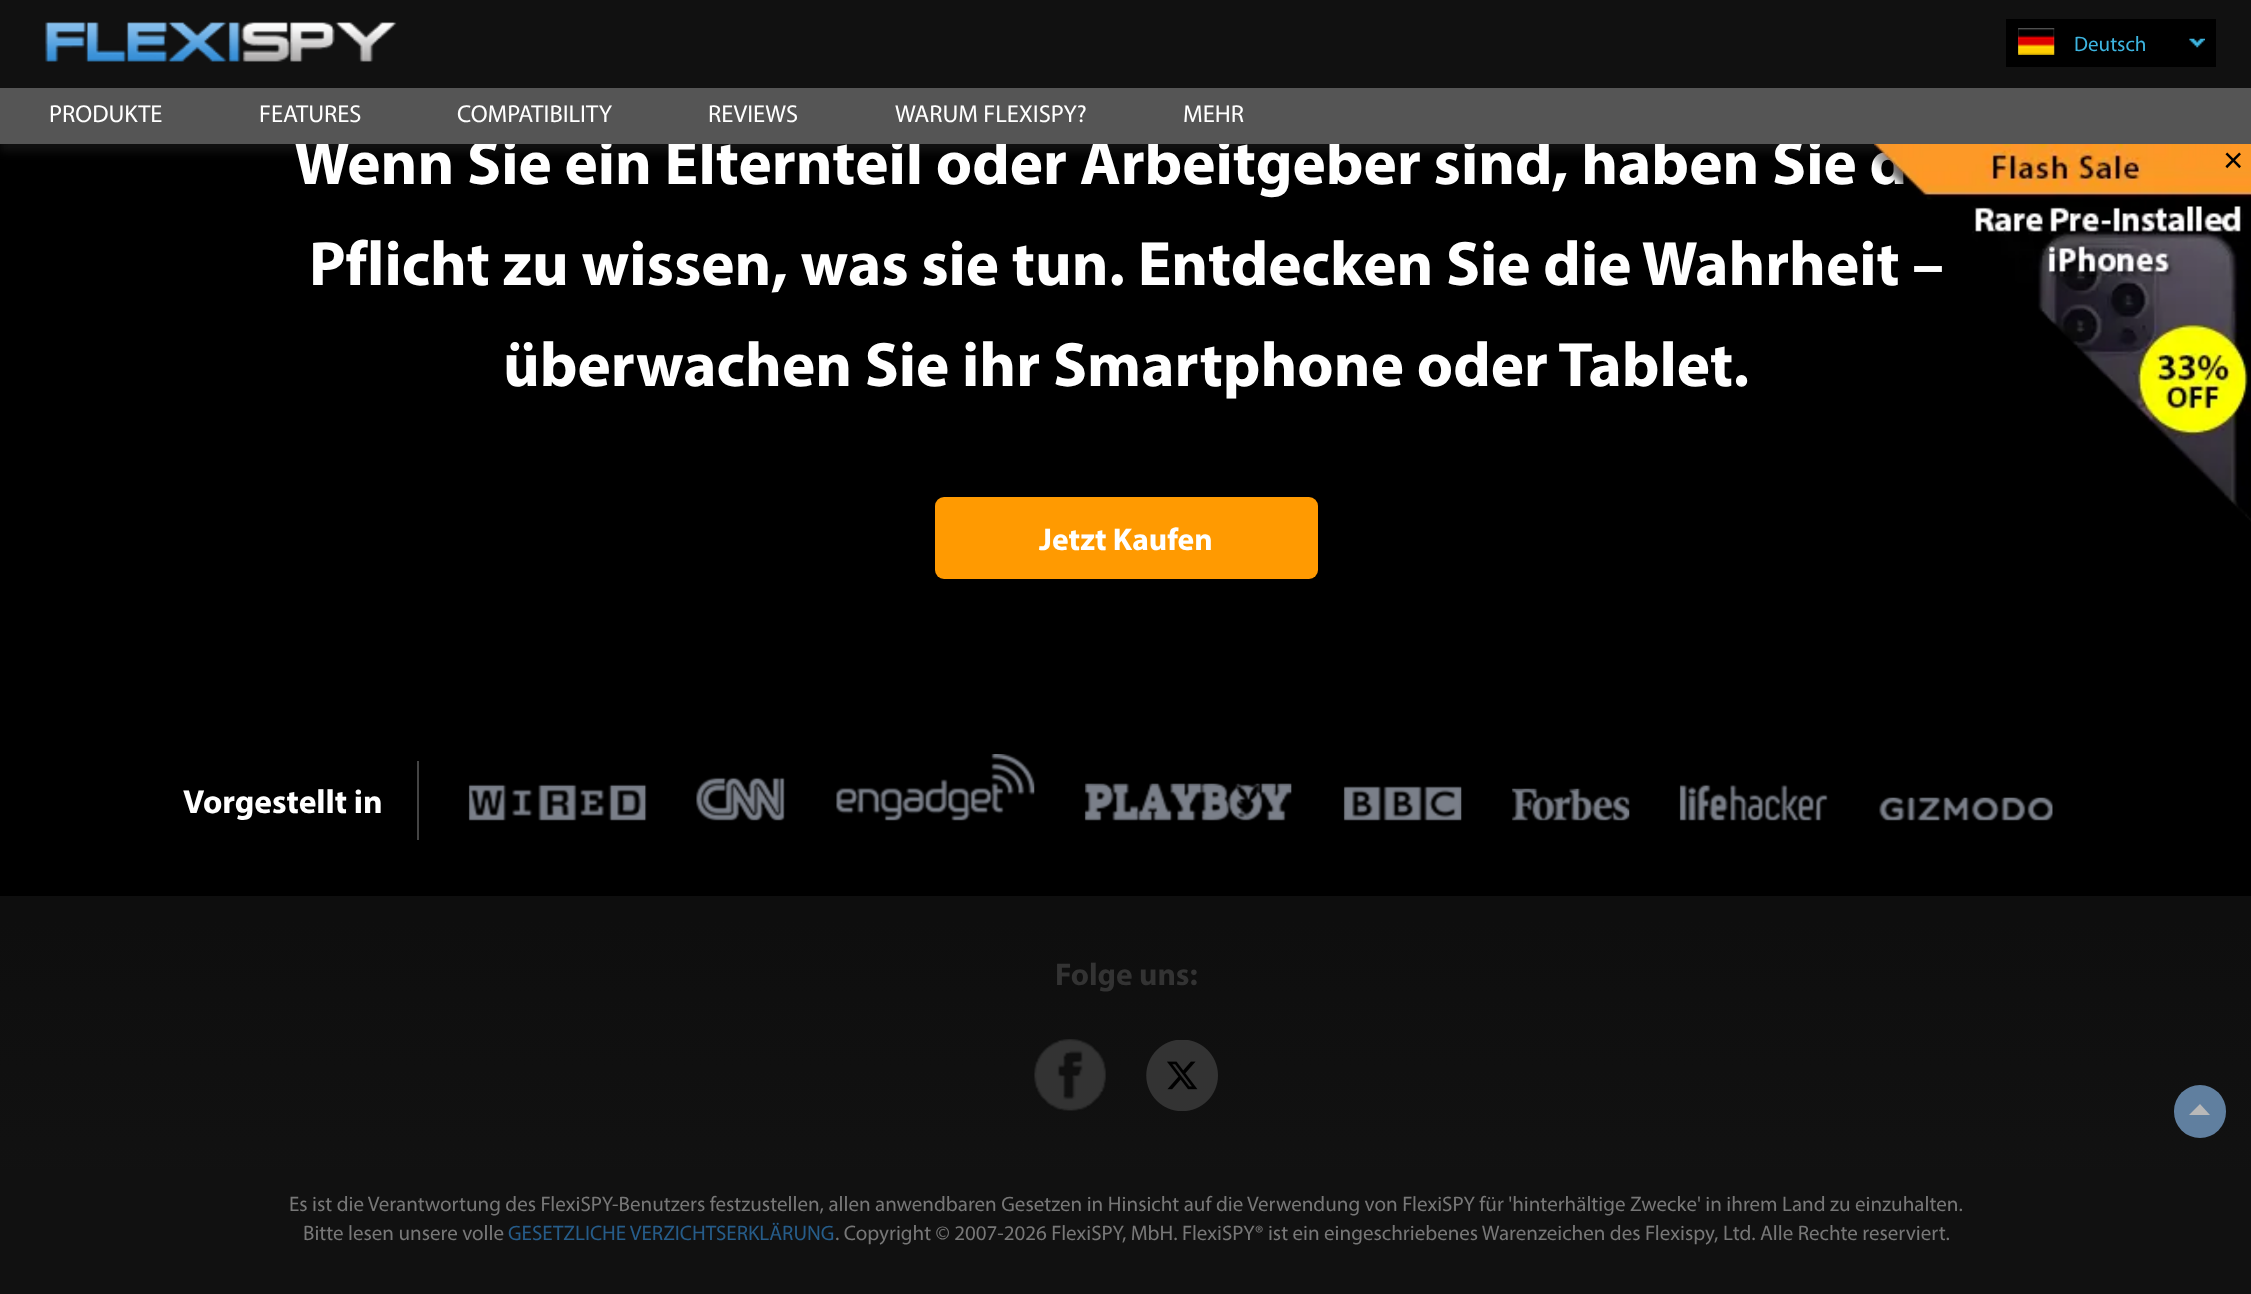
<svg xmlns="http://www.w3.org/2000/svg" width="2251" height="1294" viewBox="0 0 2251 1294">
  <style>
    .t1 { font: 21px Myriad; fill: #3db5e0; }
    .t2 { font: bold 63px Myriad; fill: #fff; }
    .t3 { font: 24.5px Myriad; fill: #fff; }
    .t4 { font: 35px Liberation Sans; fill: #000; }
    .t5 { font: bold 31.5px Myriad; fill: #fff; }
    .t6 { font: bold 33.5px Myriad; fill: #fff; }
    .t7 { font: bold 31.5px Myriad; fill: #333; }
    .t8 { font: 21px Myriad; fill: #777; }
    .t9 { font: 21px Myriad; fill: #265c89; }
  </style>
  <defs>
    <linearGradient id="g1" gradientUnits="userSpaceOnUse" x1="1126" y1="896" x2="1126" y2="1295"><stop offset="0.06" stop-color="#0e0e0e"/><stop offset="0.99" stop-color="#131313"/></linearGradient>
  </defs>
  <rect width="100%" height="100%" fill="#000"/>
  <rect x="0" y="9" width="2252" height="143" fill="#32323259" filter="blur(4.5px)"/>
  <rect x="0" y="0" width="2251" height="88" fill="#111"/>
  <image x="45" y="22" width="352" height="40" href="images/1.png"/>
  <rect x="2006" y="19" width="210" height="48" fill="#000"/>
  <image x="2018" y="28" width="37" height="27" href="images/2.png"/>
  <text x="2074" y="51" class="t1">Deutsch</text>
  <image x="2189" y="38" width="16" height="10" href="images/3.png"/>
  <text x="294" y="184" class="t2">Wenn Sie ein Elternteil oder Arbeitgeber sind, haben Sie d</text>
  <rect x="0" y="88" width="2251" height="56" fill="#555"/>
  <text x="49" y="122" class="t3">PRODUKTE</text>
  <text x="259" y="122" class="t3">FEATURES</text>
  <text x="457" y="122" class="t3">COMPATIBILITY</text>
  <text x="708" y="122" class="t3">REVIEWS</text>
  <text x="895" y="122" class="t3">WARUM FLEXISPY?</text>
  <text x="1183" y="122" class="t3">MEHR</text>
  <text x="309" y="285" class="t2">Pflicht zu wissen, was sie tun. Entdecken Sie die Wahrheit –</text>
  <image x="1874" y="144" width="377" height="378" href="images/4.png"/>
  <text x="2223" y="172" class="t4">×</text>
  <text x="503" y="386" class="t2">überwachen Sie ihr Smartphone oder Tablet.</text>
  <rect x="935" y="497" width="383" height="82" rx="9" fill="#ff9a01"/>
  <text x="1039" y="550" class="t5">Jetzt Kaufen</text>
  <rect x="417" y="761" width="2" height="79" fill="#444"/>
  <text x="183" y="813" class="t6">Vorgestellt in</text>
  <image x="468" y="784" width="179" height="37" href="images/5.png"/>
  <image x="696" y="777" width="89" height="44" href="images/6.png"/>
  <image x="836" y="754" width="199" height="67" href="images/7.png"/>
  <image x="1084" y="783" width="208" height="38" href="images/8.png"/>
  <image x="1343" y="786" width="119" height="35" href="images/9.png"/>
  <image x="1511" y="788" width="119" height="33" href="images/10.png"/>
  <image x="1679" y="784" width="149" height="37" href="images/11.png"/>
  <image x="1879" y="797" width="174" height="24" href="images/12.png"/>
  <rect x="0" y="896" width="2251" height="273" fill="url(#g1)"/>
  <text x="1055" y="985" class="t7">Folge uns:</text>
  <image x="1034" y="1039" width="72" height="72" href="images/13.png"/>
  <image x="1146" y="1040" width="72" height="71" href="images/14.png"/>
  <rect x="0" y="1169" width="2251" height="125" fill="#111"/>
  <text x="289" y="1211" class="t8">Es ist die Verantwortung des FlexiSPY-Benutzers festzustellen, allen anwendbaren Gesetzen in Hinsicht auf die Verwendung von FlexiSPY für 'hinterhältige Zwecke' in ihrem Land zu einzuhalten.</text>
  <text x="303" y="1240" class="t8">Bitte lesen unsere volle</text>
  <text x="508" y="1240" class="t9">GESETZLICHE VERZICHTSERKLÄRUNG</text>
  <text x="835" y="1240" class="t8">. Copyright © 2007-2026 FlexiSPY, MbH. FlexiSPY® ist ein eingeschriebenes Warenzeichen des Flexispy, Ltd. Alle Rechte reserviert.</text>
  <rect x="2174" y="1085" width="52" height="53" rx="26" fill="#607f9f"/>
  <path d="M2210 1115H2189L2200 1104Z" fill="#b8b8b8"/>
</svg>
